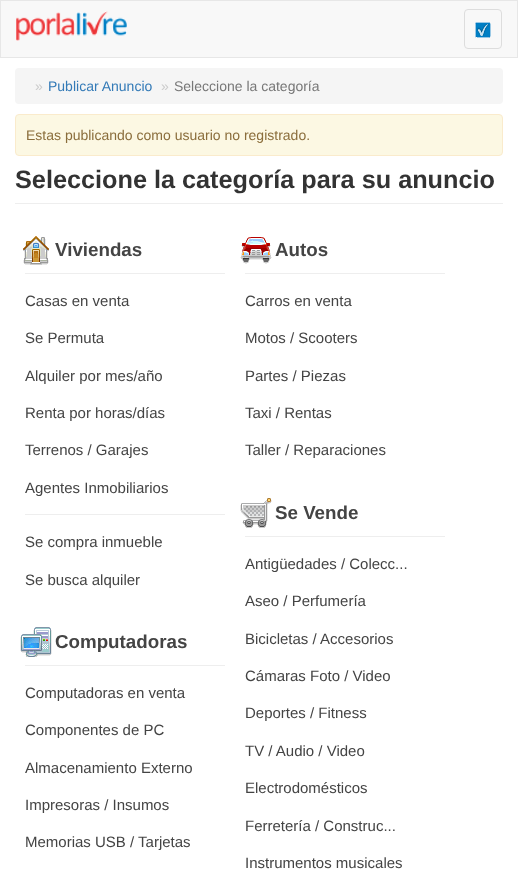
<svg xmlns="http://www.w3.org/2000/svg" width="518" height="878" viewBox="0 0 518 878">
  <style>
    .t1 { font: 14px Liberation Sans; fill: #ccc; }
    .t2 { font: 14px Liberation Sans; fill: #337ab7; }
    .t3 { font: 14px Liberation Sans; fill: #777; }
    .t4 { font: 14px Liberation Sans; fill: #8a6d3b; }
    .t5 { font: bold 25.25px Liberation Sans; fill: #333; }
    .t6 { font: bold 18.75px Liberation Sans; fill: #444; }
    .t7 { font: 15px Liberation Sans; fill: #444; }
  </style>
  <rect width="100%" height="100%" fill="#fff"/>
  <rect x="0.5" y="0.5" width="517" height="57" fill="#f8f8f8" stroke="#e7e7e7"/>
  <image x="16" y="11" width="111" height="30" href="images/1.png"/>
  <rect x="464.5" y="9.5" width="37" height="39" rx="3.5" fill="none" stroke="#ddd"/>
  <image x="475" y="22" width="16" height="16" href="images/2.png"/>
  <rect x="15" y="68" width="488" height="36" rx="4" fill="#f5f5f5"/>
  <text x="35" y="91" class="t1">»</text>
  <text x="48" y="91" class="t2">Publicar Anuncio</text>
  <text x="161" y="91" class="t1">»</text>
  <text x="174" y="91" class="t3">Seleccione la categoría</text>
  <rect x="15.5" y="114.5" width="487" height="41" rx="3.5" fill="#fcf8e3" stroke="#faebcc"/>
  <text x="26" y="140" class="t4">Estas publicando como usuario no registrado.</text>
  <rect x="15" y="203" width="488" height="1" fill="#eee"/>
  <text x="15" y="188" class="t5">Seleccione la categoría para su anuncio</text>
  <image x="23" y="236" width="26" height="29" href="images/3.png"/>
  <text x="55" y="256" class="t6">Viviendas</text>
  <rect x="25" y="273" width="200" height="1" fill="#eee"/>
  <text x="25" y="306" class="t7">Casas en venta</text>
  <text x="25" y="343" class="t7">Se Permuta</text>
  <text x="25" y="381" class="t7">Alquiler por mes/año</text>
  <text x="25" y="418" class="t7">Renta por horas/días</text>
  <text x="25" y="455" class="t7">Terrenos / Garajes</text>
  <text x="25" y="493" class="t7">Agentes Inmobiliarios</text>
  <rect x="25" y="514" width="200" height="1" fill="#eee"/>
  <text x="25" y="547" class="t7">Se compra inmueble</text>
  <text x="25" y="585" class="t7">Se busca alquiler</text>
  <image x="240" y="237" width="32" height="27" href="images/4.png"/>
  <text x="275" y="256" class="t6">Autos</text>
  <rect x="245" y="273" width="200" height="1" fill="#eee"/>
  <text x="245" y="306" class="t7">Carros en venta</text>
  <text x="245" y="343" class="t7">Motos / Scooters</text>
  <text x="245" y="381" class="t7">Partes / Piezas</text>
  <text x="245" y="418" class="t7">Taxi / Rentas</text>
  <text x="245" y="455" class="t7">Taller / Reparaciones</text>
  <image x="20" y="627" width="32" height="30" href="images/5.png"/>
  <text x="55" y="648" class="t6">Computadoras</text>
  <rect x="25" y="665" width="200" height="1" fill="#eee"/>
  <text x="25" y="698" class="t7">Computadoras en venta</text>
  <text x="25" y="735" class="t7">Componentes de PC</text>
  <text x="25" y="773" class="t7">Almacenamiento Externo</text>
  <text x="25" y="810" class="t7">Impresoras / Insumos</text>
  <text x="25" y="847" class="t7">Memorias USB / Tarjetas</text>
  <image x="240" y="498" width="32" height="30" href="images/6.png"/>
  <text x="275" y="519" class="t6">Se Vende</text>
  <rect x="245" y="536" width="200" height="1" fill="#eee"/>
  <text x="245" y="569" class="t7">Antigüedades / Colecc...</text>
  <text x="245" y="606" class="t7">Aseo / Perfumería</text>
  <text x="245" y="644" class="t7">Bicicletas / Accesorios</text>
  <text x="245" y="681" class="t7">Cámaras Foto / Video</text>
  <text x="245" y="718" class="t7">Deportes / Fitness</text>
  <text x="245" y="756" class="t7">TV / Audio / Video</text>
  <text x="245" y="793" class="t7">Electrodomésticos</text>
  <text x="245" y="831" class="t7">Ferretería / Construc...</text>
  <text x="245" y="868" class="t7">Instrumentos musicales</text>
</svg>
